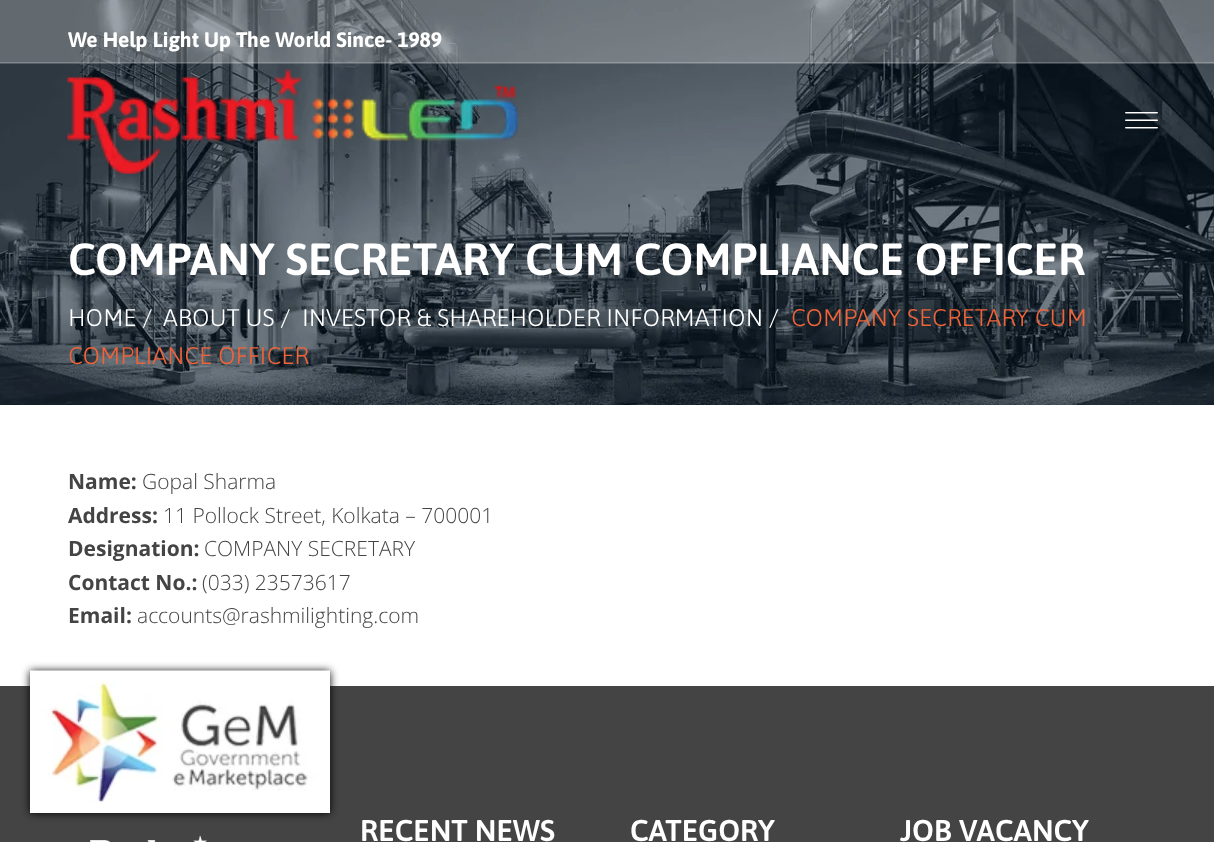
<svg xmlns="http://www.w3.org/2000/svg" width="1214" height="842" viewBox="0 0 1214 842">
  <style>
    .t1 { font: bold 21px Asap; fill: #fff; }
    .t2 { font: 600 45px Asap; fill: #fff; }
    .t3 { font: 300 24px Asap; fill: #fff; }
    .t4 { font: 300 24px Asap; fill: #f16338; }
    .t5 { font: bold 21px Open Sans; fill: #444; }
    .t6 { font: 300 21px Open Sans; fill: #444; }
    .t7 { font: 600 30px Asap; fill: #fff; }
  </style>
  <rect width="100%" height="100%" fill="#fff"/>
  <image x="0" y="0" width="1214" height="405" href="images/3.png"/>
  <rect x="0" y="0" width="1214" height="63" fill="#ffffff40"/>
  <rect x="0" y="62" width="1214" height="2" fill="#ffffff33"/>
  <text x="68" y="47" class="t1">We Help Light Up The World Since- 1989</text>
  <image x="67" y="68" width="451" height="106" href="images/1.png"/>
  <image x="1125" y="112" width="33" height="17" href="images/2.png"/>
  <text x="68" y="275" class="t2">COMPANY SECRETARY CUM COMPLIANCE OFFICER</text>
  <text x="68" y="326" class="t3">HOME /</text>
  <text x="163" y="326" class="t3">ABOUT US /</text>
  <text x="302" y="326" class="t3">INVESTOR &amp; SHAREHOLDER INFORMATION /</text>
  <text x="791" y="326" class="t4">COMPANY SECRETARY CUM</text>
  <text x="68" y="364" class="t4">COMPLIANCE OFFICER</text>
  <text x="68" y="489" class="t5">Name:</text>
  <text x="142" y="489" class="t6">Gopal Sharma</text>
  <text x="68" y="523" class="t5">Address:</text>
  <text x="163" y="523" class="t6">11 Pollock Street, Kolkata – 700001</text>
  <text x="68" y="556" class="t5">Designation:</text>
  <text x="204" y="556" class="t6">COMPANY SECRETARY</text>
  <text x="68" y="590" class="t5">Contact No.:</text>
  <text x="202" y="590" class="t6">(033) 23573617</text>
  <text x="68" y="623" class="t5">Email:</text>
  <text x="137" y="623" class="t6">accounts@rashmilighting.com</text>
  <rect x="0" y="686" width="1214" height="156" fill="#444"/>
  <rect x="30" y="671" width="300" height="142" fill="#000" filter="blur(4px)"/>
  <image x="30" y="670" width="300" height="143" href="images/4.png"/>
  <image x="90" y="835" width="117" height="7" href="images/5.png"/>
  <text x="360" y="841" class="t7">RECENT NEWS</text>
  <text x="630" y="841" class="t7">CATEGORY</text>
  <text x="900" y="841" class="t7">JOB VACANCY</text>
</svg>
